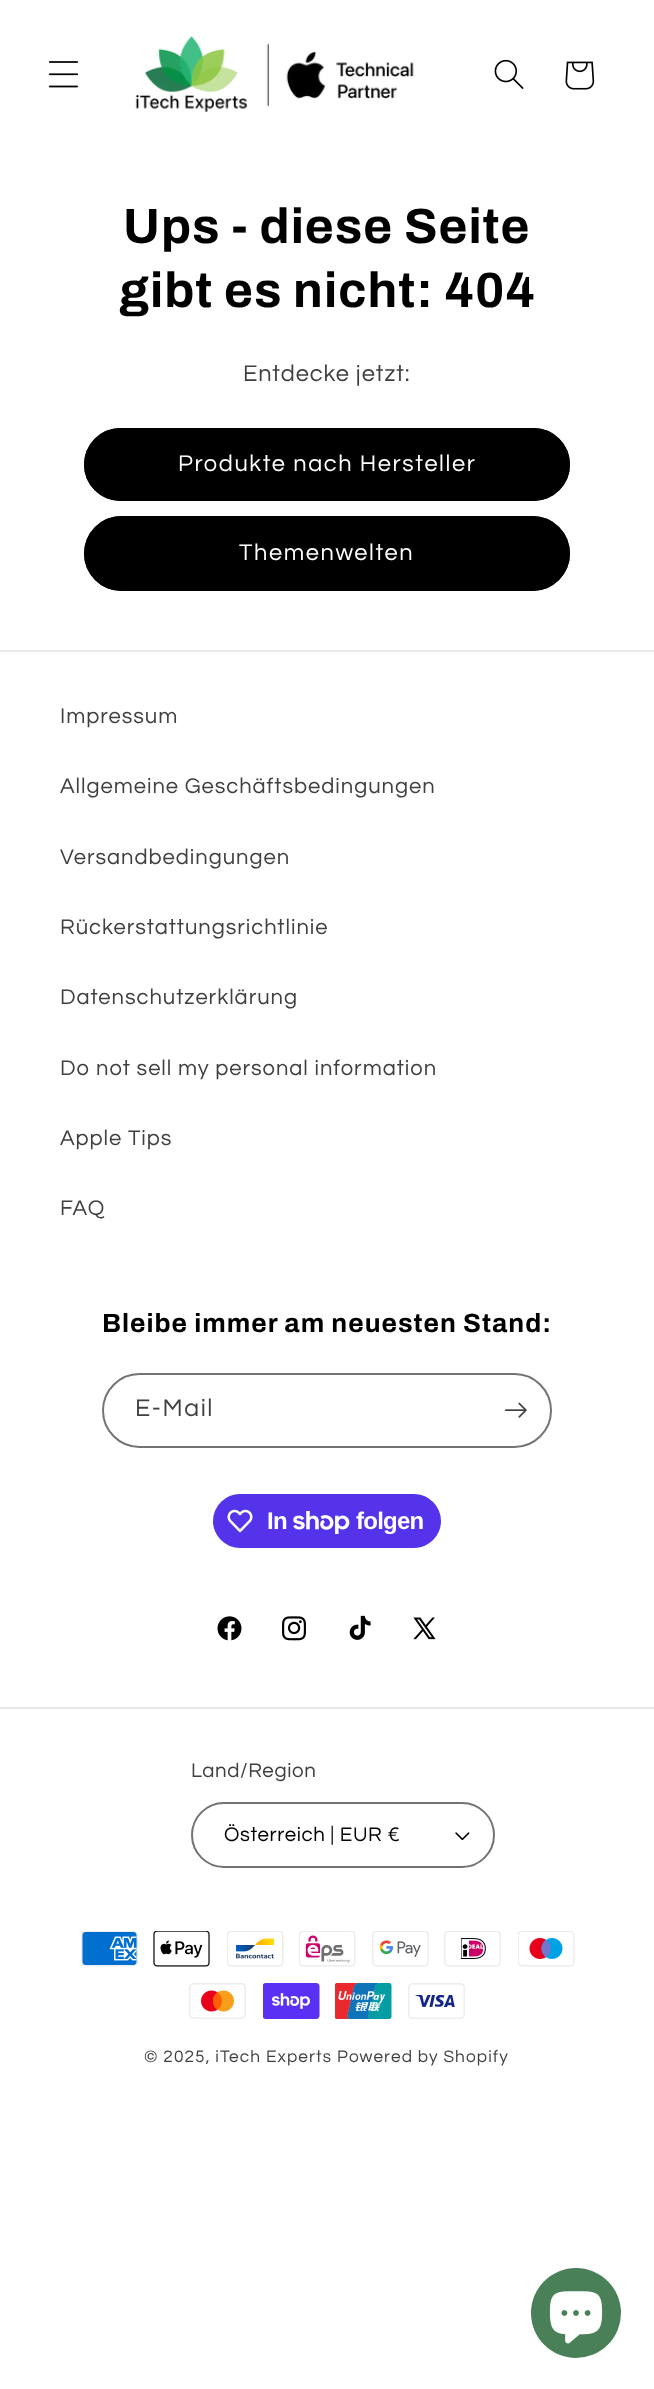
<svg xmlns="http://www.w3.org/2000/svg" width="654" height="2389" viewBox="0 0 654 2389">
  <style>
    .t1 { font: bold 49.5px Archivo; letter-spacing: 1px; fill: #000; }
    .t2 { font: 23.6px Questrial; letter-spacing: 0.95px; fill: #404040; }
    .t3 { font: 23.6px Questrial; letter-spacing: 1.6px; fill: #fff; }
    .t4 { font: 22px Questrial; letter-spacing: 0.95px; fill: #404040; }
    .t5 { font: bold 26.4px Archivo; letter-spacing: 1px; fill: #000; }
    .t6 { font: 25px Questrial; letter-spacing: 1.6px; fill: #404040; }
    .t7 { font: bold 24px Liberation Sans; letter-spacing: -0.75px; fill: #fff; }
    .t8 { font: 20.5px Questrial; letter-spacing: 0.6px; fill: #404040; }
    .t9 { font: 20.5px Questrial; letter-spacing: 0.6px; fill: #000; }
    .t10 { font: 17.25px Questrial; letter-spacing: 1.1px; fill: #404040; }
  </style>
  <rect width="100%" height="100%" fill="#fff"/>
  <image x="48" y="61" width="31" height="27" href="images/1.png"/>
  <image x="135" y="36" width="279" height="76" href="images/2.png"/>
  <image x="494" y="59" width="30" height="30" href="images/3.png"/>
  <image x="565" y="61" width="30" height="29" href="images/4.png"/>
  <text x="123" y="243" class="t1">Ups - diese Seite</text>
  <text x="119" y="307" class="t1">gibt es nicht: 404</text>
  <text x="243" y="381" class="t2">Entdecke jetzt:</text>
  <rect x="84" y="428" width="486" height="73" rx="36.5" fill="#000"/>
  <rect x="85" y="429" width="484" height="71" rx="35.5" fill="none" stroke="#000" stroke-width="2"/>
  <text x="178" y="471" class="t3">Produkte nach Hersteller</text>
  <rect x="84" y="516" width="486" height="75" rx="37.5" fill="#000"/>
  <rect x="85" y="517" width="484" height="73" rx="36.5" fill="none" stroke="#000" stroke-width="2"/>
  <text x="239" y="560" class="t3">Themenwelten</text>
  <rect x="0" y="650" width="654" height="2" fill="#ebebeb"/>
  <text x="60" y="723" class="t4">Impressum</text>
  <text x="60" y="793" class="t4">Allgemeine Geschäftsbedingungen</text>
  <text x="60" y="864" class="t4">Versandbedingungen</text>
  <text x="60" y="934" class="t4">Rückerstattungsrichtlinie</text>
  <text x="60" y="1004" class="t4">Datenschutzerklärung</text>
  <text x="60" y="1075" class="t4">Do not sell my personal information</text>
  <text x="60" y="1145" class="t4">Apple Tips</text>
  <text x="60" y="1215" class="t4">FAQ</text>
  <text x="102" y="1332" class="t5">Bleibe immer am neuesten Stand:</text>
  <rect x="103" y="1374" width="448" height="73" rx="36.5" fill="none" stroke="#737373" stroke-width="2"/>
  <text x="135" y="1416" class="t6">E-Mail</text>
  <image x="504" y="1402" width="23" height="16" href="images/5.png"/>
  <rect x="213" y="1494" width="228" height="54" rx="27" fill="#5433eb"/>
  <image x="227" y="1509" width="26" height="24" href="images/6.png"/>
  <text x="267" y="1529" class="t7">In</text>
  <image x="293" y="1511" width="57" height="23" href="images/7.png"/>
  <text x="356" y="1529" class="t7">folgen</text>
  <image x="217" y="1616" width="25" height="25" href="images/8.png"/>
  <image x="282" y="1616" width="24" height="25" href="images/9.png"/>
  <image x="349" y="1615" width="22" height="25" href="images/10.png"/>
  <image x="413" y="1617" width="23" height="23" href="images/11.png"/>
  <rect x="0" y="1707" width="654" height="2" fill="#ebebeb"/>
  <text x="191" y="1777" class="t8">Land/Region</text>
  <image x="455" y="1832" width="15" height="9" href="images/12.png"/>
  <rect x="192" y="1803" width="302" height="64" rx="32" fill="none" stroke="#737373" stroke-width="2"/>
  <text x="224" y="1841" class="t9">Österreich | EUR €</text>
  <image x="81" y="1931" width="57" height="36" href="images/13.png"/>
  <image x="153" y="1931" width="57" height="36" href="images/14.png"/>
  <image x="227" y="1931" width="57" height="36" href="images/15.png"/>
  <image x="299" y="1931" width="57" height="36" href="images/16.png"/>
  <image x="372" y="1931" width="57" height="36" href="images/17.png"/>
  <image x="444" y="1931" width="57" height="36" href="images/18.png"/>
  <image x="518" y="1931" width="57" height="36" href="images/19.png"/>
  <image x="189" y="1983" width="57" height="36" href="images/20.png"/>
  <image x="263" y="1983" width="57" height="36" href="images/21.png"/>
  <image x="335" y="1983" width="57" height="36" href="images/22.png"/>
  <image x="408" y="1983" width="57" height="36" href="images/23.png"/>
  <text x="144" y="2062" class="t10">© 2025, iTech Experts</text>
  <text x="337" y="2062" class="t10">Powered by Shopify</text>
  <circle cx="576" cy="2313" r="45" fill="#4a8058"/>
  <image x="549" y="2291" width="54" height="53" href="images/24.png"/>
</svg>
